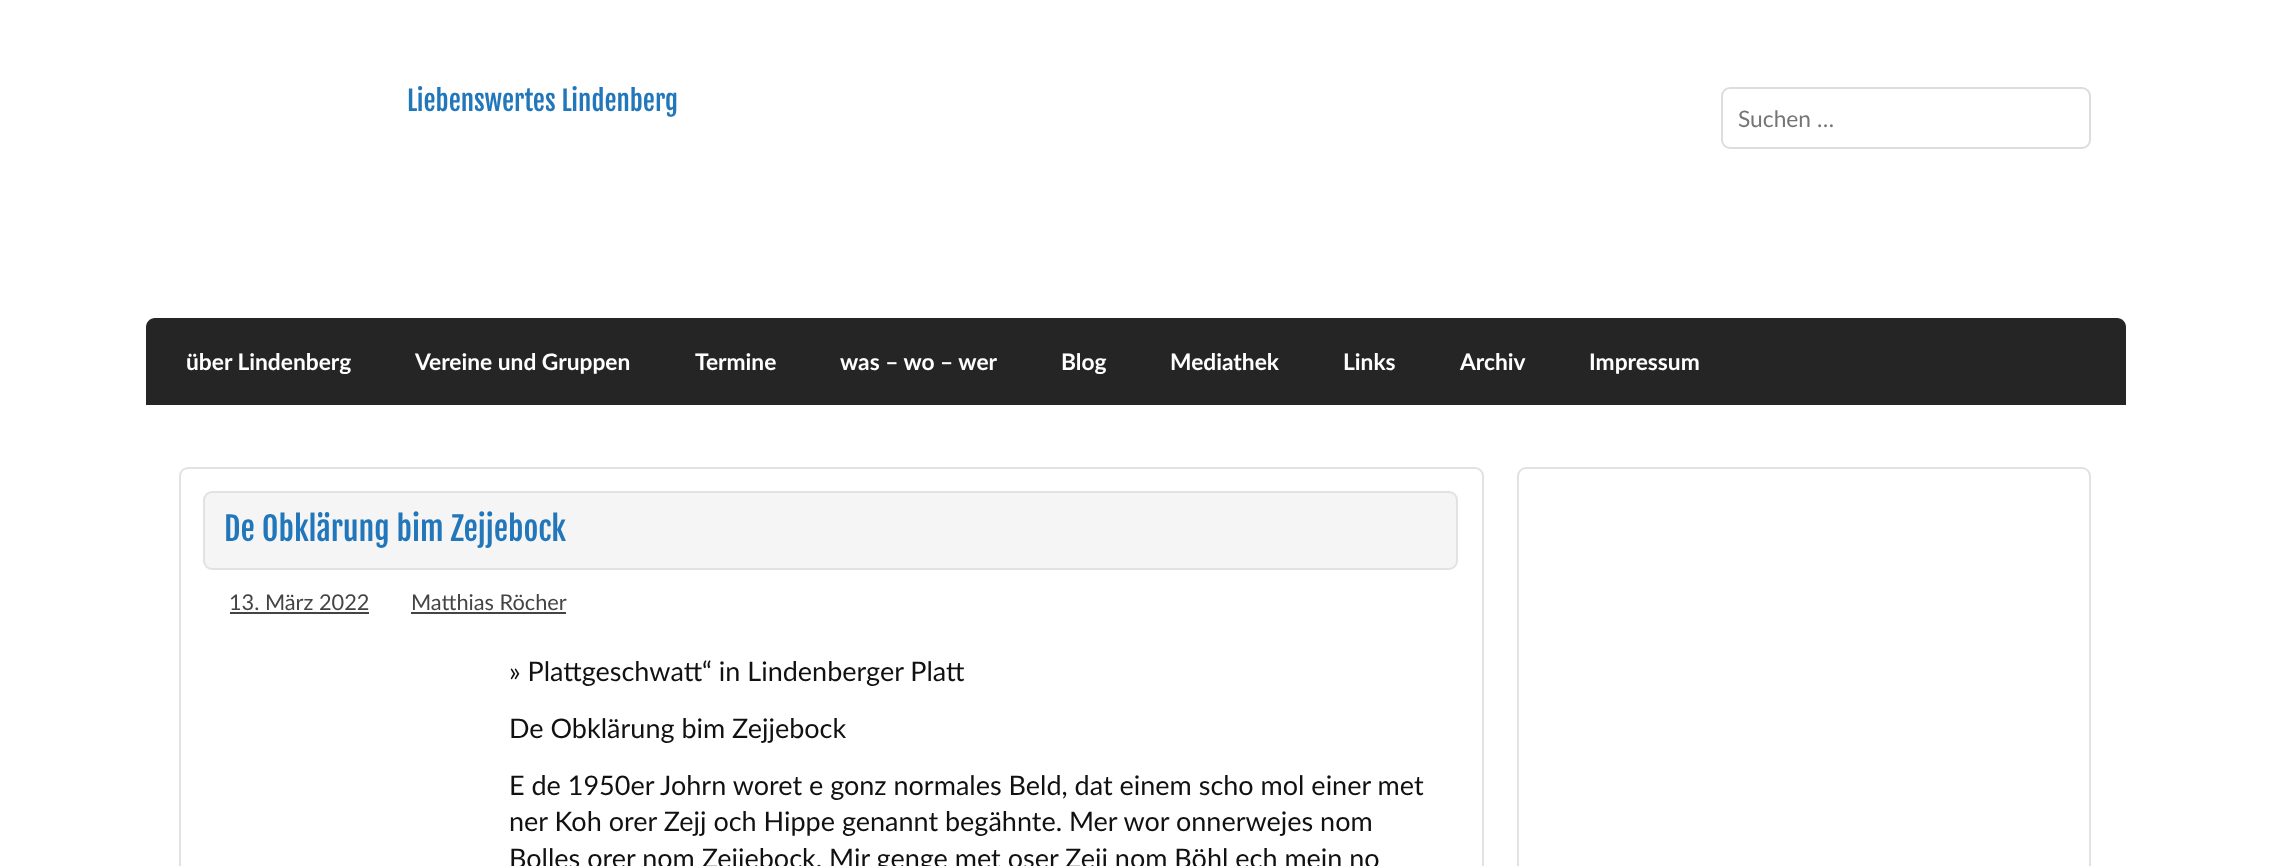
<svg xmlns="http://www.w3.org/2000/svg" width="2269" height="866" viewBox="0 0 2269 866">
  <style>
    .t1 { font: 27px Fjalla One; fill: #27b; }
    .t2 { font: 22.75px Lato; fill: #757575; }
    .t3 { font: bold 22.75px Lato; fill: #fff; }
    .t4 { font: 32px Fjalla One; fill: #27b; }
    .t5 { font: 21.75px Lato; fill: #444; }
    .t6 { font: 27px Lato; fill: #111; }
  </style>
  <rect width="100%" height="100%" fill="#fff"/>
  <text x="407" y="111" class="t1">Liebenswertes Lindenberg</text>
  <rect x="1722" y="88" width="368" height="60" rx="8" fill="none" stroke="#ddd" stroke-width="2"/>
  <text x="1738" y="127" class="t2">Suchen …</text>
  <path d="M155 318H2117C2122 318 2126 322 2126 327V405H146V327C146 322 150 318 155 318Z" fill="#252525"/>
  <text x="186" y="370" class="t3">über Lindenberg</text>
  <text x="415" y="370" class="t3">Vereine und Gruppen</text>
  <text x="695" y="370" class="t3">Termine</text>
  <text x="840" y="370" class="t3">was – wo – wer</text>
  <text x="1061" y="370" class="t3">Blog</text>
  <text x="1170" y="370" class="t3">Mediathek</text>
  <text x="1343" y="370" class="t3">Links</text>
  <text x="1460" y="370" class="t3">Archiv</text>
  <text x="1589" y="370" class="t3">Impressum</text>
  <rect x="180" y="468" width="1303" height="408" rx="8" fill="none" stroke="#e2e2e2" stroke-width="2"/>
  <rect x="204" y="492" width="1253" height="77" rx="8" fill="#f5f5f5" stroke="#e2e2e2" stroke-width="2"/>
  <text x="224" y="541" class="t4">De Obklärung bim Zejjebock</text>
  <text x="229" y="610" class="t5">13. März 2022</text>
  <rect x="230" y="612" width="139" height="2" fill="#444"/>
  <text x="411" y="610" class="t5">Matthias Röcher</text>
  <rect x="411" y="612" width="155" height="2" fill="#444"/>
  <text x="509" y="681" class="t6">» Plattgeschwatt“ in Lindenberger Platt</text>
  <text x="509" y="738" class="t6">De Obklärung bim Zejjebock</text>
  <text x="509" y="795" class="t6">E de 1950er Johrn woret e gonz normales Beld, dat einem scho mol einer met</text>
  <text x="509" y="831" class="t6">ner Koh orer Zejj och Hippe genannt begähnte. Mer wor onnerwejes nom</text>
  <text x="509" y="868" class="t6">Bolles orer nom Zejjebock. Mir genge met oser Zejj nom Böhl ech mein no</text>
  <rect x="1518" y="468" width="572" height="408" rx="8" fill="none" stroke="#e2e2e2" stroke-width="2"/>
</svg>
